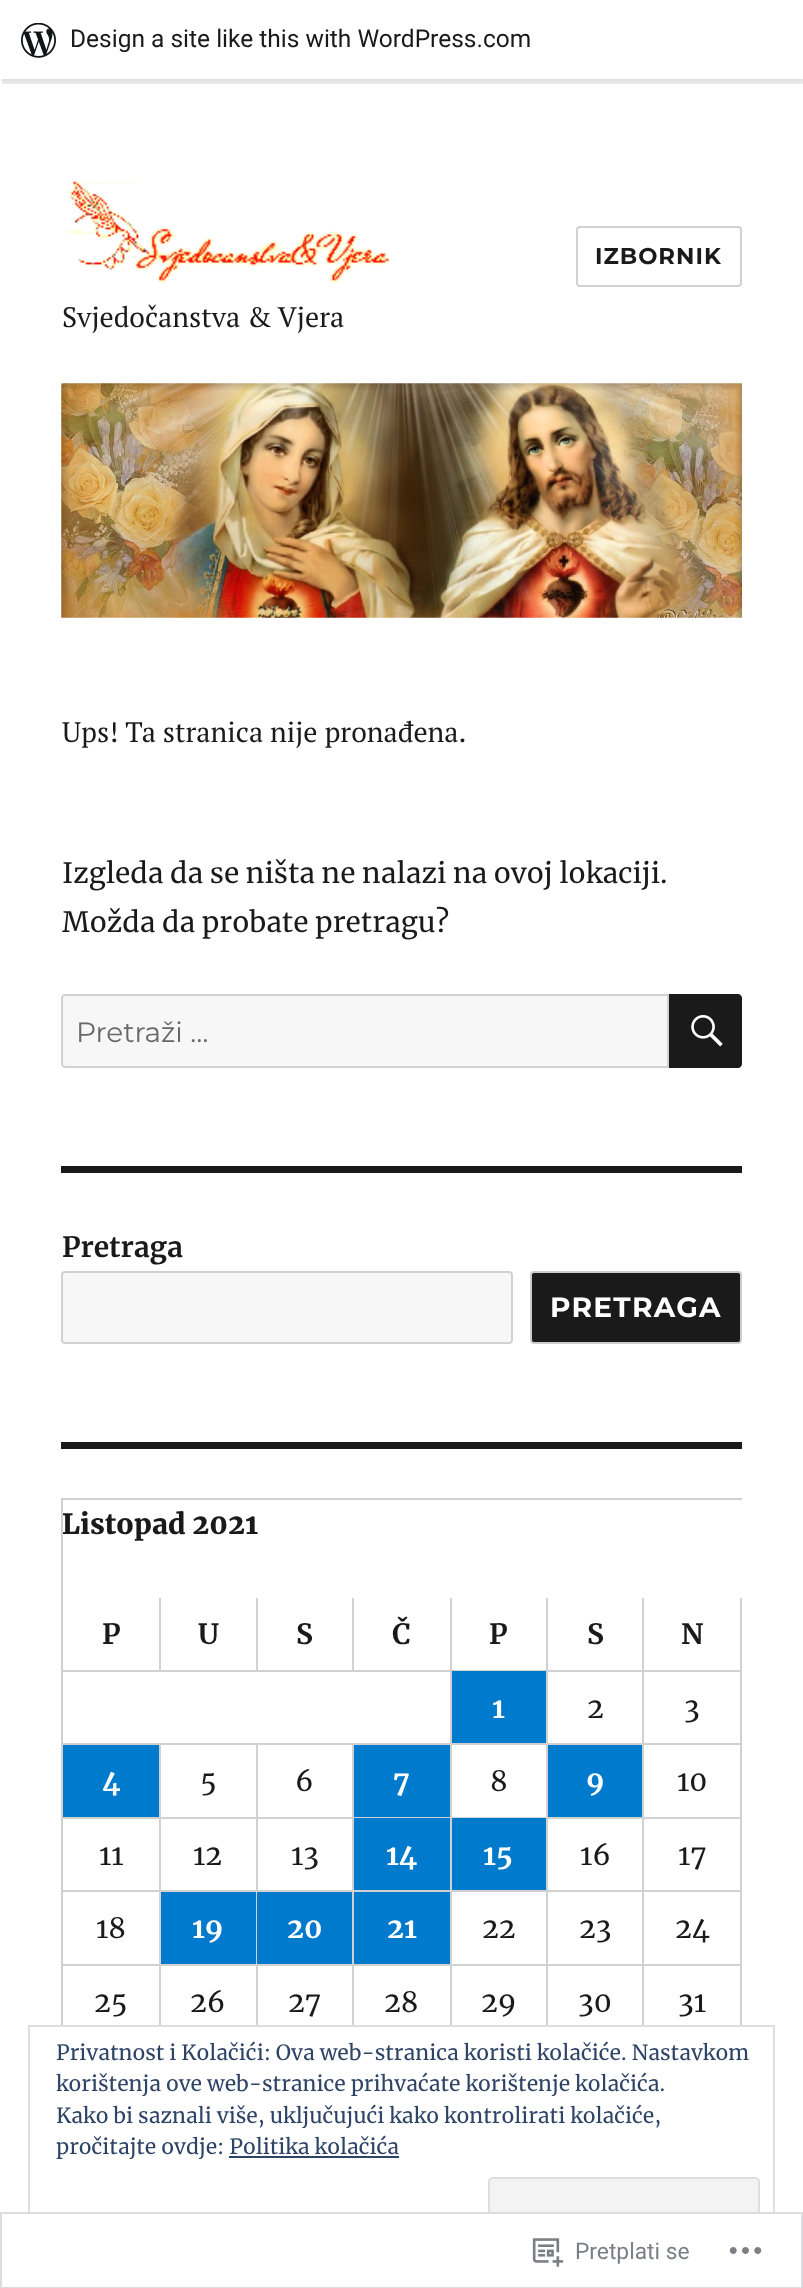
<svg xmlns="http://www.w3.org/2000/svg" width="803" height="2288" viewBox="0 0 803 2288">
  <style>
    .t1 { font: 24.5px Roboto; fill: #1a1a1a; }
    .t2 { font: 100 22.75px Montserrat; letter-spacing: 1px; fill: #1a1a1a; }
    .t3 { font: 28.2px PT Serif; fill: #1a1a1a; }
    .t4 { font: 28px Merriweather; fill: #1a1a1a; }
    .t5 { font: 100 28px 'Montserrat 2'; fill: #686868; }
    .t6 { font: bold 28px Merriweather; fill: #1a1a1a; }
    .t7 { font: 100 28px Montserrat; letter-spacing: 1.25px; fill: #fff; }
    .t8 { font: 900 28px Merriweather; fill: #1a1a1a; }
    .t9 { font: bold 28px Merriweather; fill: #fff; }
    .t10 { font: 21px Merriweather; fill: #2e4467; }
    .t11 { font: 22.75px Roboto; fill: #7b7f84; }
  </style>
  <rect width="100%" height="100%" fill="#fff"/>
  <rect x="0" y="2" width="803" height="79" fill="#0000000d" filter="blur(2px)"/>
  <path d="M2 79V84H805V5H803V79Z" fill="#00000014"/>
  <rect x="0" y="0" width="803" height="79" fill="#fff"/>
  <image x="21" y="23" width="35" height="35" href="images/1.png"/>
  <text x="70" y="47" class="t1">Design a site like this with WordPress.com</text>
  <rect x="577" y="227" width="164" height="59" rx="3" fill="none" stroke="#d1d1d1" stroke-width="2"/>
  <text x="595" y="264" class="t2">IZBORNIK</text>
  <image x="69" y="180" width="322" height="104" href="images/2.png"/>
  <text x="62" y="327" class="t3">Svjedočanstva &amp; Vjera</text>
  <image x="61" y="383" width="681" height="235" href="images/3.png"/>
  <text x="62" y="742" class="t3">Ups! Ta stranica nije pronađena.</text>
  <text x="62" y="883" class="t4">Izgleda da se ništa ne nalazi na ovoj lokaciji.</text>
  <text x="62" y="932" class="t4">Možda da probate pretragu?</text>
  <path d="M65 995H668V1067H65C63.5 1067 62 1065.5 62 1064V998C62 996.5 63.5 995 65 995Z" fill="#f7f7f7" stroke="#d1d1d1" stroke-width="2"/>
  <text x="76" y="1042" class="t5">Pretraži …</text>
  <path d="M669 994H738C740 994 742 996 742 998V1064C742 1066 740 1068 738 1068H669Z" fill="#1a1a1a"/>
  <image x="691" y="1015" width="32" height="32" href="images/4.png"/>
  <rect x="61" y="1166" width="681" height="7" fill="#1a1a1a"/>
  <text x="62" y="1257" class="t6">Pretraga</text>
  <rect x="62" y="1272" width="450" height="71" rx="3" fill="#f7f7f7" stroke="#d1d1d1" stroke-width="2"/>
  <rect x="531" y="1272" width="210" height="71" rx="3" fill="#1a1a1a" stroke="#ccc" stroke-width="2"/>
  <text x="550" y="1317" class="t7">PRETRAGA</text>
  <rect x="61" y="1442" width="681" height="7" fill="#1a1a1a"/>
  <rect x="61" y="1498" width="681" height="2" fill="#d1d1d1"/>
  <rect x="61" y="1498" width="2" height="527" fill="#d1d1d1"/>
  <text x="62" y="1534" class="t8">Listopad 2021</text>
  <rect x="159" y="1598" width="2" height="73" fill="#d1d1d1"/>
  <rect x="63" y="1670" width="98" height="2" fill="#d1d1d1"/>
  <text x="102" y="1644" class="t6">P</text>
  <rect x="256" y="1598" width="2" height="73" fill="#d1d1d1"/>
  <rect x="161" y="1670" width="96" height="2" fill="#d1d1d1"/>
  <text x="198" y="1644" class="t6">U</text>
  <rect x="352" y="1598" width="2" height="73" fill="#d1d1d1"/>
  <rect x="257" y="1670" width="97" height="2" fill="#d1d1d1"/>
  <text x="296" y="1644" class="t6">S</text>
  <rect x="450" y="1598" width="2" height="73" fill="#d1d1d1"/>
  <rect x="354" y="1670" width="98" height="2" fill="#d1d1d1"/>
  <text x="392" y="1644" class="t6">Č</text>
  <rect x="546" y="1598" width="2" height="367" fill="#d1d1d1"/>
  <rect x="452" y="1670" width="96" height="1" fill="#d1d1d1"/>
  <text x="489" y="1644" class="t6">P</text>
  <rect x="642" y="1598" width="2" height="73" fill="#d1d1d1"/>
  <rect x="548" y="1670" width="96" height="2" fill="#d1d1d1"/>
  <text x="587" y="1644" class="t6">S</text>
  <rect x="740" y="1598" width="2" height="73" fill="#d1d1d1"/>
  <rect x="644" y="1670" width="98" height="2" fill="#d1d1d1"/>
  <text x="681" y="1644" class="t6">N</text>
  <rect x="450" y="1671" width="2" height="294" fill="#d1d1d1"/>
  <rect x="63" y="1743" width="485" height="2" fill="#d1d1d1"/>
  <rect x="452" y="1671" width="94" height="72" fill="#007acc"/>
  <text x="492" y="1718" class="t9">1</text>
  <rect x="642" y="1671" width="2" height="147" fill="#d1d1d1"/>
  <rect x="548" y="1743" width="96" height="2" fill="#d1d1d1"/>
  <text x="587" y="1718" class="t4">2</text>
  <rect x="740" y="1671" width="2" height="147" fill="#d1d1d1"/>
  <rect x="644" y="1743" width="98" height="2" fill="#d1d1d1"/>
  <text x="684" y="1718" class="t4">3</text>
  <rect x="159" y="1745" width="2" height="73" fill="#d1d1d1"/>
  <rect x="63" y="1817" width="98" height="2" fill="#d1d1d1"/>
  <rect x="63" y="1745" width="96" height="72" fill="#007acc"/>
  <text x="102" y="1791" class="t9">4</text>
  <rect x="256" y="1745" width="2" height="73" fill="#d1d1d1"/>
  <rect x="161" y="1817" width="96" height="2" fill="#d1d1d1"/>
  <text x="200" y="1791" class="t4">5</text>
  <rect x="352" y="1745" width="2" height="73" fill="#d1d1d1"/>
  <rect x="257" y="1817" width="97" height="2" fill="#d1d1d1"/>
  <text x="295" y="1791" class="t4">6</text>
  <rect x="354" y="1817" width="194" height="1" fill="#d1d1d1"/>
  <rect x="354" y="1745" width="96" height="72" fill="#007acc"/>
  <text x="393" y="1791" class="t9">7</text>
  <text x="490" y="1791" class="t4">8</text>
  <rect x="548" y="1817" width="194" height="2" fill="#d1d1d1"/>
  <rect x="548" y="1745" width="94" height="72" fill="#007acc"/>
  <text x="586" y="1791" class="t9">9</text>
  <text x="677" y="1791" class="t4">10</text>
  <rect x="159" y="1818" width="2" height="147" fill="#d1d1d1"/>
  <rect x="63" y="1890" width="98" height="2" fill="#d1d1d1"/>
  <text x="99" y="1865" class="t4">11</text>
  <rect x="256" y="1818" width="2" height="74" fill="#d1d1d1"/>
  <rect x="161" y="1890" width="96" height="2" fill="#d1d1d1"/>
  <text x="193" y="1865" class="t4">12</text>
  <rect x="352" y="1818" width="2" height="147" fill="#d1d1d1"/>
  <rect x="257" y="1890" width="291" height="2" fill="#d1d1d1"/>
  <text x="291" y="1865" class="t4">13</text>
  <rect x="354" y="1818" width="96" height="72" fill="#007acc"/>
  <text x="386" y="1865" class="t9">14</text>
  <rect x="452" y="1818" width="94" height="72" fill="#007acc"/>
  <text x="483" y="1865" class="t9">15</text>
  <rect x="642" y="1818" width="2" height="147" fill="#d1d1d1"/>
  <rect x="548" y="1890" width="96" height="2" fill="#d1d1d1"/>
  <text x="580" y="1865" class="t4">16</text>
  <rect x="740" y="1818" width="2" height="147" fill="#d1d1d1"/>
  <rect x="644" y="1890" width="98" height="2" fill="#d1d1d1"/>
  <text x="678" y="1865" class="t4">17</text>
  <rect x="63" y="1964" width="98" height="2" fill="#d1d1d1"/>
  <text x="96" y="1938" class="t4">18</text>
  <rect x="256" y="1892" width="1" height="73" fill="#d1d1d1"/>
  <rect x="161" y="1964" width="581" height="2" fill="#d1d1d1"/>
  <rect x="161" y="1892" width="95" height="72" fill="#007acc"/>
  <text x="192" y="1938" class="t9">19</text>
  <rect x="257" y="1892" width="95" height="72" fill="#007acc"/>
  <text x="287" y="1938" class="t9">20</text>
  <rect x="354" y="1892" width="96" height="72" fill="#007acc"/>
  <text x="387" y="1938" class="t9">21</text>
  <text x="482" y="1938" class="t4">22</text>
  <text x="579" y="1938" class="t4">23</text>
  <text x="675" y="1938" class="t4">24</text>
  <rect x="159" y="1965" width="2" height="60" fill="#d1d1d1"/>
  <text x="94" y="2012" class="t4">25</text>
  <rect x="256" y="1965" width="2" height="60" fill="#d1d1d1"/>
  <text x="190" y="2012" class="t4">26</text>
  <rect x="352" y="1965" width="2" height="60" fill="#d1d1d1"/>
  <text x="288" y="2012" class="t4">27</text>
  <rect x="450" y="1965" width="2" height="60" fill="#d1d1d1"/>
  <text x="384" y="2012" class="t4">28</text>
  <rect x="546" y="1965" width="2" height="60" fill="#d1d1d1"/>
  <text x="481" y="2012" class="t4">29</text>
  <rect x="642" y="1965" width="2" height="60" fill="#d1d1d1"/>
  <text x="578" y="2012" class="t4">30</text>
  <rect x="740" y="1965" width="2" height="60" fill="#d1d1d1"/>
  <text x="678" y="2012" class="t4">31</text>
  <rect x="29" y="2026" width="745" height="234" fill="none" stroke="#dedede" stroke-width="2"/>
  <text x="56" y="2060" class="t10">Privatnost i Kolačići: Ova web-stranica koristi kolačiće. Nastavkom</text>
  <text x="56" y="2091" class="t10">korištenja ove web-stranice prihvaćate korištenje kolačića.</text>
  <text x="56" y="2123" class="t10">Kako bi saznali više, uključujući kako kontrolirati kolačiće,</text>
  <text x="56" y="2154" class="t10">pročitajte ovdje: Politika kolačića</text>
  <rect x="229" y="2156" width="170" height="2" fill="#2e4467"/>
  <rect x="489" y="2178" width="270" height="66" rx="4" fill="#f3f3f3" stroke="#dedede" stroke-width="2"/>
  <rect x="28" y="2212" width="747" height="49" fill="#fffffffa"/>
  <rect x="1" y="2213" width="801" height="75" fill="none" stroke="#dcdcdefa" stroke-width="2"/>
  <image x="532" y="2238" width="32" height="29" href="images/5.png"/>
  <text x="575" y="2259" class="t11">Pretplati se</text>
  <image x="729" y="2247" width="33" height="7" href="images/6.png"/>
</svg>
